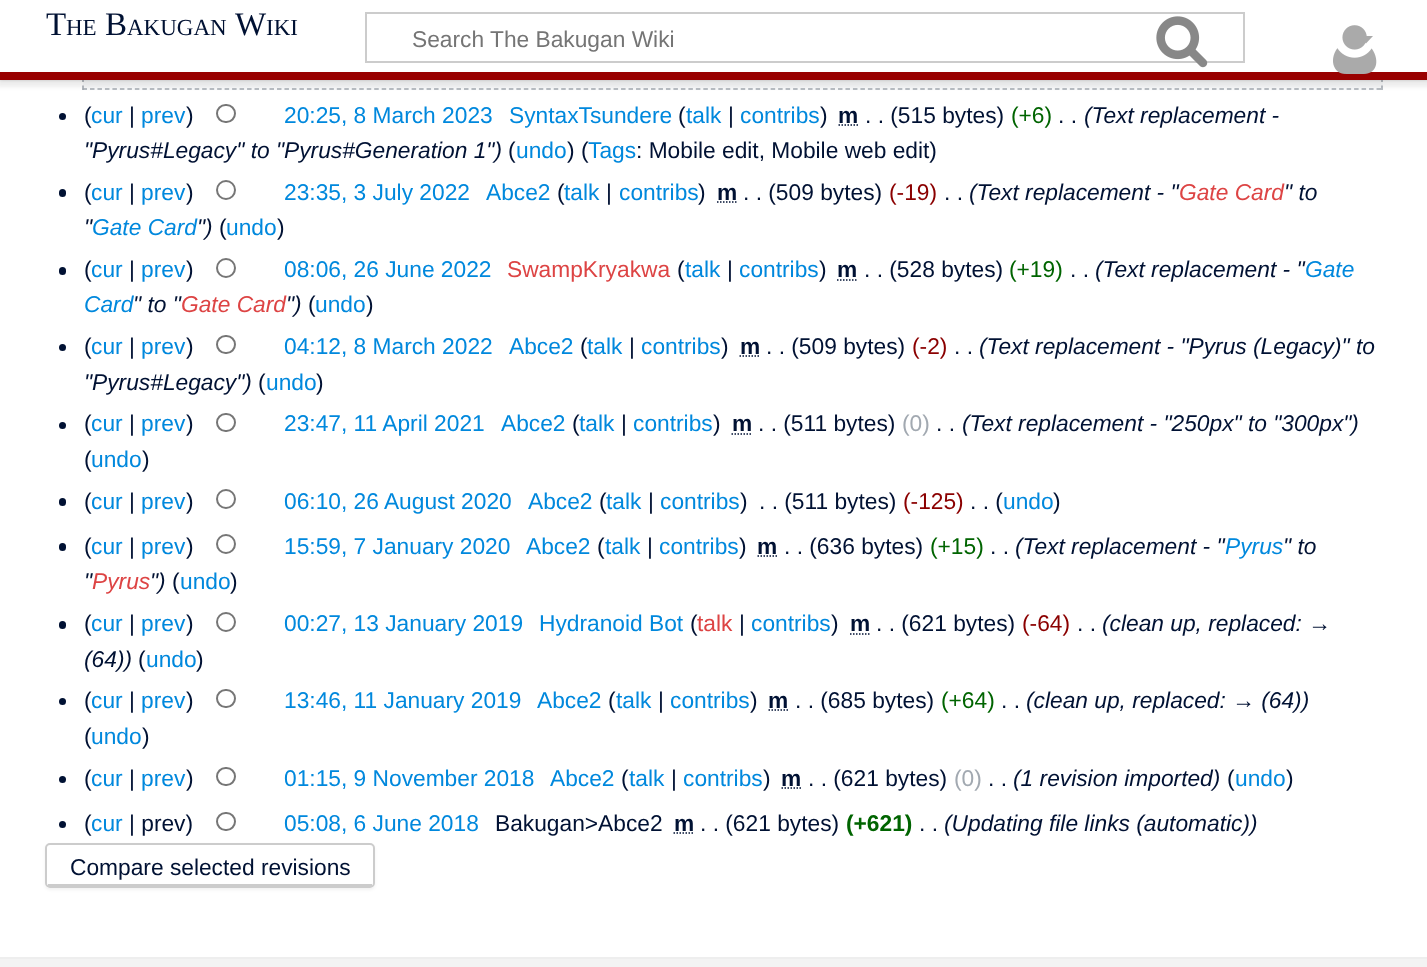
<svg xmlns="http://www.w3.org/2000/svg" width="1427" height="967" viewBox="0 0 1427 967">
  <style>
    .t1 { font: 33px Liberation Serif; fill: #013; }
    .t2 { font: 23px Liberation Serif; fill: #013; }
    .t3 { font: 22.75px Liberation Sans; fill: #757575; }
    .t4 { font: 22.75px Liberation Sans; fill: #013; }
    .t5 { font: 22.75px Liberation Sans; fill: #08d; }
    .t6 { font: bold 22.75px Liberation Sans; fill: #013; }
    .t7 { font: 22.75px Liberation Sans; fill: #006400; }
    .t8 { font: italic 22.75px Liberation Sans; fill: #013; }
    .t9 { font: 22.75px Liberation Sans; fill: #8b0000; }
    .t10 { font: italic 22.75px Liberation Sans; fill: #d44; }
    .t11 { font: italic 22.75px Liberation Sans; fill: #08d; }
    .t12 { font: 22.75px Liberation Sans; fill: #d44; }
    .t13 { font: 22.75px Liberation Sans; fill: #a2a9b1; }
    .t14 { font: bold 22.75px Liberation Sans; fill: #006400; }
  </style>
  <defs>
    <clipPath id="clip1"><path d="M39 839H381V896H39ZM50 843H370C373 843 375 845 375 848V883C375 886 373 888 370 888H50C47 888 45 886 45 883V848C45 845 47 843 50 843Z" clip-rule="evenodd"/></clipPath>
  </defs>
  <rect width="100%" height="100%" fill="#f3f3f3"/>
  <rect x="0" y="80" width="1427" height="877" fill="#fff"/>
  <rect x="83" y="80" width="1300" height="10" fill="#f8f9fa"/>
  <path d="M1382 45V90" fill="none" stroke="#a2a9b1" stroke-width="1.5" stroke-dasharray="4.5 3.6"/>
  <path d="M82.5 89H1383" fill="none" stroke="#a2a9b1" stroke-width="1.5" stroke-dasharray="4.5 2.98"/>
  <path d="M83 45V90" fill="none" stroke="#a2a9b1" stroke-width="1.5" stroke-dasharray="4.5 3.6"/>
  <rect x="0" y="72" width="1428" height="8" fill="#00000033" filter="blur(1.5px)"/>
  <rect x="-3" y="74" width="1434" height="13" fill="#00000012" filter="blur(2px)"/>
  <rect x="0" y="0" width="1427" height="72" fill="#fff"/>
  <text x="46" y="35" class="t1">T</text>
  <text x="66" y="35" class="t2">HE</text>
  <text x="105" y="35" class="t1">B</text>
  <text x="127" y="35" class="t2">AKUGAN</text>
  <text x="235" y="35" class="t1">W</text>
  <text x="266" y="35" class="t2">IKI</text>
  <rect x="366" y="13" width="878" height="49" fill="none" stroke="#ccc" stroke-width="2"/>
  <text x="412" y="47" class="t3">Search The Bakugan Wiki</text>
  <image x="1156" y="16" width="52" height="52" href="images/1.png"/>
  <rect x="0" y="72" width="1427" height="8" fill="#900"/>
  <image x="1333" y="25" width="44" height="49" href="images/2.png"/>
  <path d="M1373 36L1366 43.5L1358 36Z" fill="#aaa"/>
  <rect x="0" y="957" width="1427" height="2" fill="#eee"/>
  <circle cx="62.5" cy="116.5" r="3.5" fill="#013"/>
  <text x="84" y="123" class="t4">(</text>
  <text x="91" y="123" class="t5">cur</text>
  <text x="129" y="123" class="t4">|</text>
  <text x="141" y="123" class="t5">prev</text>
  <text x="186" y="123" class="t4">)</text>
  <rect x="217" y="105" width="18" height="17" rx="8.5" fill="none" stroke="#767676" stroke-width="2"/>
  <text x="284" y="123" class="t5">20:25, 8 March 2023</text>
  <text x="509" y="123" class="t5">SyntaxTsundere</text>
  <text x="678" y="123" class="t4">(</text>
  <text x="686" y="123" class="t5">talk</text>
  <text x="728" y="123" class="t4">|</text>
  <text x="740" y="123" class="t5">contribs</text>
  <text x="820" y="123" class="t4">)</text>
  <text x="838" y="123" class="t6">m</text>
  <path d="M838.5 125H858.5" fill="none" stroke="#013" stroke-width="1.5" stroke-dasharray="1.5 1.5"/>
  <text x="865" y="123" class="t4">. . (515 bytes)</text>
  <text x="1011" y="123" class="t7">(+6)</text>
  <text x="1084" y="123" class="t8">(Text replacement -</text>
  <text x="1058" y="123" class="t4">. .</text>
  <text x="84" y="158" class="t8">"Pyrus#Legacy" to "Pyrus#Generation 1")</text>
  <text x="508" y="158" class="t4">(</text>
  <text x="516" y="158" class="t5">undo</text>
  <text x="567" y="158" class="t4">) (</text>
  <text x="588" y="158" class="t5">Tags</text>
  <text x="636" y="158" class="t4">: Mobile edit, Mobile web edit)</text>
  <rect x="59" y="189" width="7" height="8" rx="3.5" fill="#013"/>
  <text x="84" y="200" class="t4">(</text>
  <text x="91" y="200" class="t5">cur</text>
  <text x="129" y="200" class="t4">|</text>
  <text x="141" y="200" class="t5">prev</text>
  <text x="186" y="200" class="t4">)</text>
  <circle cx="226" cy="190" r="9" fill="none" stroke="#767676" stroke-width="2"/>
  <text x="284" y="200" class="t5">23:35, 3 July 2022</text>
  <text x="486" y="200" class="t5">Abce2</text>
  <text x="557" y="200" class="t4">(</text>
  <text x="564" y="200" class="t5">talk</text>
  <text x="606" y="200" class="t4">|</text>
  <text x="619" y="200" class="t5">contribs</text>
  <text x="698" y="200" class="t4">)</text>
  <text x="717" y="200" class="t6">m</text>
  <path d="M717 202H737" fill="none" stroke="#013" stroke-width="1.5" stroke-dasharray="1.5 1.5"/>
  <text x="743" y="200" class="t4">. . (509 bytes)</text>
  <text x="889" y="200" class="t9">(-19)</text>
  <text x="969" y="200" class="t8">(Text replacement - "</text>
  <text x="1179" y="200" class="t10">Gate Card</text>
  <text x="1284" y="200" class="t8">" to</text>
  <text x="944" y="200" class="t4">. .</text>
  <text x="84" y="235" class="t8">"</text>
  <text x="92" y="235" class="t11">Gate Card</text>
  <text x="197" y="235" class="t8">")</text>
  <text x="219" y="235" class="t4">(</text>
  <text x="226" y="235" class="t5">undo</text>
  <text x="277" y="235" class="t4">)</text>
  <rect x="59" y="267" width="7" height="8" rx="3.5" fill="#013"/>
  <text x="84" y="277" class="t4">(</text>
  <text x="91" y="277" class="t5">cur</text>
  <text x="129" y="277" class="t4">|</text>
  <text x="141" y="277" class="t5">prev</text>
  <text x="186" y="277" class="t4">)</text>
  <circle cx="226" cy="268" r="9" fill="none" stroke="#767676" stroke-width="2"/>
  <text x="284" y="277" class="t5">08:06, 26 June 2022</text>
  <text x="507" y="277" class="t12">SwampKryakwa</text>
  <text x="677" y="277" class="t4">(</text>
  <text x="685" y="277" class="t5">talk</text>
  <text x="727" y="277" class="t4">|</text>
  <text x="739" y="277" class="t5">contribs</text>
  <text x="819" y="277" class="t4">)</text>
  <text x="837" y="277" class="t6">m</text>
  <path d="M837 280H857.5" fill="none" stroke="#013" stroke-width="1.5" stroke-dasharray="1.5 1.5"/>
  <text x="864" y="277" class="t4">. . (528 bytes)</text>
  <text x="1009" y="277" class="t7">(+19)</text>
  <text x="1095" y="277" class="t8">(Text replacement - "</text>
  <text x="1305" y="277" class="t11">Gate</text>
  <text x="1070" y="277" class="t4">. .</text>
  <text x="84" y="312" class="t11">Card</text>
  <text x="133" y="312" class="t8">" to "</text>
  <text x="181" y="312" class="t10">Gate Card</text>
  <text x="286" y="312" class="t8">")</text>
  <text x="308" y="312" class="t4">(</text>
  <text x="315" y="312" class="t5">undo</text>
  <text x="366" y="312" class="t4">)</text>
  <circle cx="62.5" cy="347.5" r="3.5" fill="#013"/>
  <text x="84" y="354" class="t4">(</text>
  <text x="91" y="354" class="t5">cur</text>
  <text x="129" y="354" class="t4">|</text>
  <text x="141" y="354" class="t5">prev</text>
  <text x="186" y="354" class="t4">)</text>
  <rect x="217" y="336" width="18" height="17" rx="8.5" fill="none" stroke="#767676" stroke-width="2"/>
  <text x="284" y="354" class="t5">04:12, 8 March 2022</text>
  <text x="509" y="354" class="t5">Abce2</text>
  <text x="580" y="354" class="t4">(</text>
  <text x="587" y="354" class="t5">talk</text>
  <text x="629" y="354" class="t4">|</text>
  <text x="641" y="354" class="t5">contribs</text>
  <text x="721" y="354" class="t4">)</text>
  <text x="740" y="354" class="t6">m</text>
  <path d="M739.5 356H760" fill="none" stroke="#013" stroke-width="1.5" stroke-dasharray="1.5 1.5"/>
  <text x="766" y="354" class="t4">. . (509 bytes)</text>
  <text x="912" y="354" class="t9">(-2)</text>
  <text x="979" y="354" class="t8">(Text replacement - "Pyrus (Legacy)" to</text>
  <text x="954" y="354" class="t4">. .</text>
  <text x="84" y="390" class="t8">"Pyrus#Legacy")</text>
  <text x="258" y="390" class="t4">(</text>
  <text x="266" y="390" class="t5">undo</text>
  <text x="316" y="390" class="t4">)</text>
  <circle cx="62.5" cy="425.5" r="3.5" fill="#013"/>
  <text x="84" y="431" class="t4">(</text>
  <text x="91" y="431" class="t5">cur</text>
  <text x="129" y="431" class="t4">|</text>
  <text x="141" y="431" class="t5">prev</text>
  <text x="186" y="431" class="t4">)</text>
  <rect x="217" y="414" width="18" height="17" rx="8.5" fill="none" stroke="#767676" stroke-width="2"/>
  <text x="284" y="431" class="t5">23:47, 11 April 2021</text>
  <text x="501" y="431" class="t5">Abce2</text>
  <text x="572" y="431" class="t4">(</text>
  <text x="579" y="431" class="t5">talk</text>
  <text x="621" y="431" class="t4">|</text>
  <text x="633" y="431" class="t5">contribs</text>
  <text x="713" y="431" class="t4">)</text>
  <text x="732" y="431" class="t6">m</text>
  <path d="M731.5 434H752" fill="none" stroke="#013" stroke-width="1.5" stroke-dasharray="1.5 1.5"/>
  <text x="758" y="431" class="t4">. . (511 bytes)</text>
  <text x="902" y="431" class="t13">(0)</text>
  <text x="962" y="431" class="t8">(Text replacement - "250px" to "300px")</text>
  <text x="936" y="431" class="t4">. .</text>
  <text x="84" y="467" class="t4">(</text>
  <text x="91" y="467" class="t5">undo</text>
  <text x="142" y="467" class="t4">)</text>
  <rect x="59" y="498" width="7" height="8" rx="3.5" fill="#013"/>
  <text x="84" y="509" class="t4">(</text>
  <text x="91" y="509" class="t5">cur</text>
  <text x="129" y="509" class="t4">|</text>
  <text x="141" y="509" class="t5">prev</text>
  <text x="186" y="509" class="t4">)</text>
  <circle cx="226" cy="499" r="9" fill="none" stroke="#767676" stroke-width="2"/>
  <text x="284" y="509" class="t5">06:10, 26 August 2020</text>
  <text x="528" y="509" class="t5">Abce2</text>
  <text x="599" y="509" class="t4">(</text>
  <text x="606" y="509" class="t5">talk</text>
  <text x="648" y="509" class="t4">|</text>
  <text x="660" y="509" class="t5">contribs</text>
  <text x="740" y="509" class="t4">)</text>
  <text x="759" y="509" class="t4">. . (511 bytes)</text>
  <text x="903" y="509" class="t9">(-125)</text>
  <text x="970" y="509" class="t4">. . (</text>
  <text x="1003" y="509" class="t5">undo</text>
  <text x="1053" y="509" class="t4">)</text>
  <rect x="59" y="543" width="7" height="8" rx="3.5" fill="#013"/>
  <text x="84" y="554" class="t4">(</text>
  <text x="91" y="554" class="t5">cur</text>
  <text x="129" y="554" class="t4">|</text>
  <text x="141" y="554" class="t5">prev</text>
  <text x="186" y="554" class="t4">)</text>
  <circle cx="226" cy="544" r="9" fill="none" stroke="#767676" stroke-width="2"/>
  <text x="284" y="554" class="t5">15:59, 7 January 2020</text>
  <text x="526" y="554" class="t5">Abce2</text>
  <text x="597" y="554" class="t4">(</text>
  <text x="605" y="554" class="t5">talk</text>
  <text x="647" y="554" class="t4">|</text>
  <text x="659" y="554" class="t5">contribs</text>
  <text x="739" y="554" class="t4">)</text>
  <text x="757" y="554" class="t6">m</text>
  <path d="M757.5 556H777.5" fill="none" stroke="#013" stroke-width="1.5" stroke-dasharray="1.5 1.5"/>
  <text x="784" y="554" class="t4">. . (636 bytes)</text>
  <text x="930" y="554" class="t7">(+15)</text>
  <text x="1015" y="554" class="t8">(Text replacement - "</text>
  <text x="1225" y="554" class="t11">Pyrus</text>
  <text x="1283" y="554" class="t8">" to</text>
  <text x="990" y="554" class="t4">. .</text>
  <text x="84" y="589" class="t8">"</text>
  <text x="92" y="589" class="t10">Pyrus</text>
  <text x="150" y="589" class="t8">")</text>
  <text x="172" y="589" class="t4">(</text>
  <text x="180" y="589" class="t5">undo</text>
  <text x="230" y="589" class="t4">)</text>
  <rect x="59" y="621" width="7" height="8" rx="3.5" fill="#013"/>
  <text x="84" y="631" class="t4">(</text>
  <text x="91" y="631" class="t5">cur</text>
  <text x="129" y="631" class="t4">|</text>
  <text x="141" y="631" class="t5">prev</text>
  <text x="186" y="631" class="t4">)</text>
  <circle cx="226" cy="622" r="9" fill="none" stroke="#767676" stroke-width="2"/>
  <text x="284" y="631" class="t5">00:27, 13 January 2019</text>
  <text x="539" y="631" class="t5">Hydranoid Bot</text>
  <text x="690" y="631" class="t4">(</text>
  <text x="697" y="631" class="t12">talk</text>
  <text x="739" y="631" class="t4">|</text>
  <text x="751" y="631" class="t5">contribs</text>
  <text x="831" y="631" class="t4">)</text>
  <text x="850" y="631" class="t6">m</text>
  <path d="M850 634H870" fill="none" stroke="#013" stroke-width="1.5" stroke-dasharray="1.5 1.5"/>
  <text x="876" y="631" class="t4">. . (621 bytes)</text>
  <text x="1022" y="631" class="t9">(-64)</text>
  <text x="1102" y="631" class="t8">(clean up, replaced: →</text>
  <text x="1077" y="631" class="t4">. .</text>
  <text x="84" y="667" class="t8">(64))</text>
  <text x="138" y="667" class="t4">(</text>
  <text x="146" y="667" class="t5">undo</text>
  <text x="196" y="667" class="t4">)</text>
  <circle cx="62.5" cy="701.5" r="3.5" fill="#013"/>
  <text x="84" y="708" class="t4">(</text>
  <text x="91" y="708" class="t5">cur</text>
  <text x="129" y="708" class="t4">|</text>
  <text x="141" y="708" class="t5">prev</text>
  <text x="186" y="708" class="t4">)</text>
  <rect x="217" y="690" width="18" height="17" rx="8.5" fill="none" stroke="#767676" stroke-width="2"/>
  <text x="284" y="708" class="t5">13:46, 11 January 2019</text>
  <text x="537" y="708" class="t5">Abce2</text>
  <text x="608" y="708" class="t4">(</text>
  <text x="616" y="708" class="t5">talk</text>
  <text x="658" y="708" class="t4">|</text>
  <text x="670" y="708" class="t5">contribs</text>
  <text x="750" y="708" class="t4">)</text>
  <text x="768" y="708" class="t6">m</text>
  <path d="M768.5 710H788.5" fill="none" stroke="#013" stroke-width="1.5" stroke-dasharray="1.5 1.5"/>
  <text x="795" y="708" class="t4">. . (685 bytes)</text>
  <text x="941" y="708" class="t7">(+64)</text>
  <text x="1026" y="708" class="t8">(clean up, replaced: → (64))</text>
  <text x="1001" y="708" class="t4">. .</text>
  <text x="84" y="744" class="t4">(</text>
  <text x="91" y="744" class="t5">undo</text>
  <text x="142" y="744" class="t4">)</text>
  <circle cx="62.5" cy="779.5" r="3.5" fill="#013"/>
  <text x="84" y="786" class="t4">(</text>
  <text x="91" y="786" class="t5">cur</text>
  <text x="129" y="786" class="t4">|</text>
  <text x="141" y="786" class="t5">prev</text>
  <text x="186" y="786" class="t4">)</text>
  <rect x="217" y="768" width="18" height="17" rx="8.5" fill="none" stroke="#767676" stroke-width="2"/>
  <text x="284" y="786" class="t5">01:15, 9 November 2018</text>
  <text x="550" y="786" class="t5">Abce2</text>
  <text x="621" y="786" class="t4">(</text>
  <text x="629" y="786" class="t5">talk</text>
  <text x="671" y="786" class="t4">|</text>
  <text x="683" y="786" class="t5">contribs</text>
  <text x="763" y="786" class="t4">)</text>
  <text x="781" y="786" class="t6">m</text>
  <path d="M781.5 788H801.5" fill="none" stroke="#013" stroke-width="1.5" stroke-dasharray="1.5 1.5"/>
  <text x="808" y="786" class="t4">. . (621 bytes)</text>
  <text x="954" y="786" class="t13">(0)</text>
  <text x="1013" y="786" class="t8">(1 revision imported)</text>
  <text x="1227" y="786" class="t4">(</text>
  <text x="1235" y="786" class="t5">undo</text>
  <text x="1286" y="786" class="t4">)</text>
  <text x="988" y="786" class="t4">. .</text>
  <circle cx="62.5" cy="824.5" r="3.5" fill="#013"/>
  <text x="84" y="831" class="t4">(</text>
  <text x="91" y="831" class="t5">cur</text>
  <text x="129" y="831" class="t4">| prev)</text>
  <rect x="217" y="813" width="18" height="17" rx="8.5" fill="none" stroke="#767676" stroke-width="2"/>
  <text x="284" y="831" class="t5">05:08, 6 June 2018</text>
  <text x="495" y="831" class="t4">Bakugan&gt;Abce2</text>
  <text x="674" y="831" class="t6">m</text>
  <path d="M673.5 833H694" fill="none" stroke="#013" stroke-width="1.5" stroke-dasharray="1.5 1.5"/>
  <text x="700" y="831" class="t4">. . (621 bytes)</text>
  <text x="846" y="831" class="t14">(+621)</text>
  <text x="944" y="831" class="t8">(Updating file links (automatic))</text>
  <text x="919" y="831" class="t4">. .</text>
  <g clip-path="url(#clip1)">
    <rect x="45" y="845" width="330" height="45" rx="5" fill="#0000000d" filter="blur(1.5px)"/>
  </g>
  <rect x="46" y="844" width="328" height="43" rx="4" fill="none" stroke="#ccc" stroke-width="2"/>
  <rect x="48" y="884" width="324" height="2" fill="#ccc"/>
  <text x="70" y="875" class="t4">Compare selected revisions</text>
</svg>
